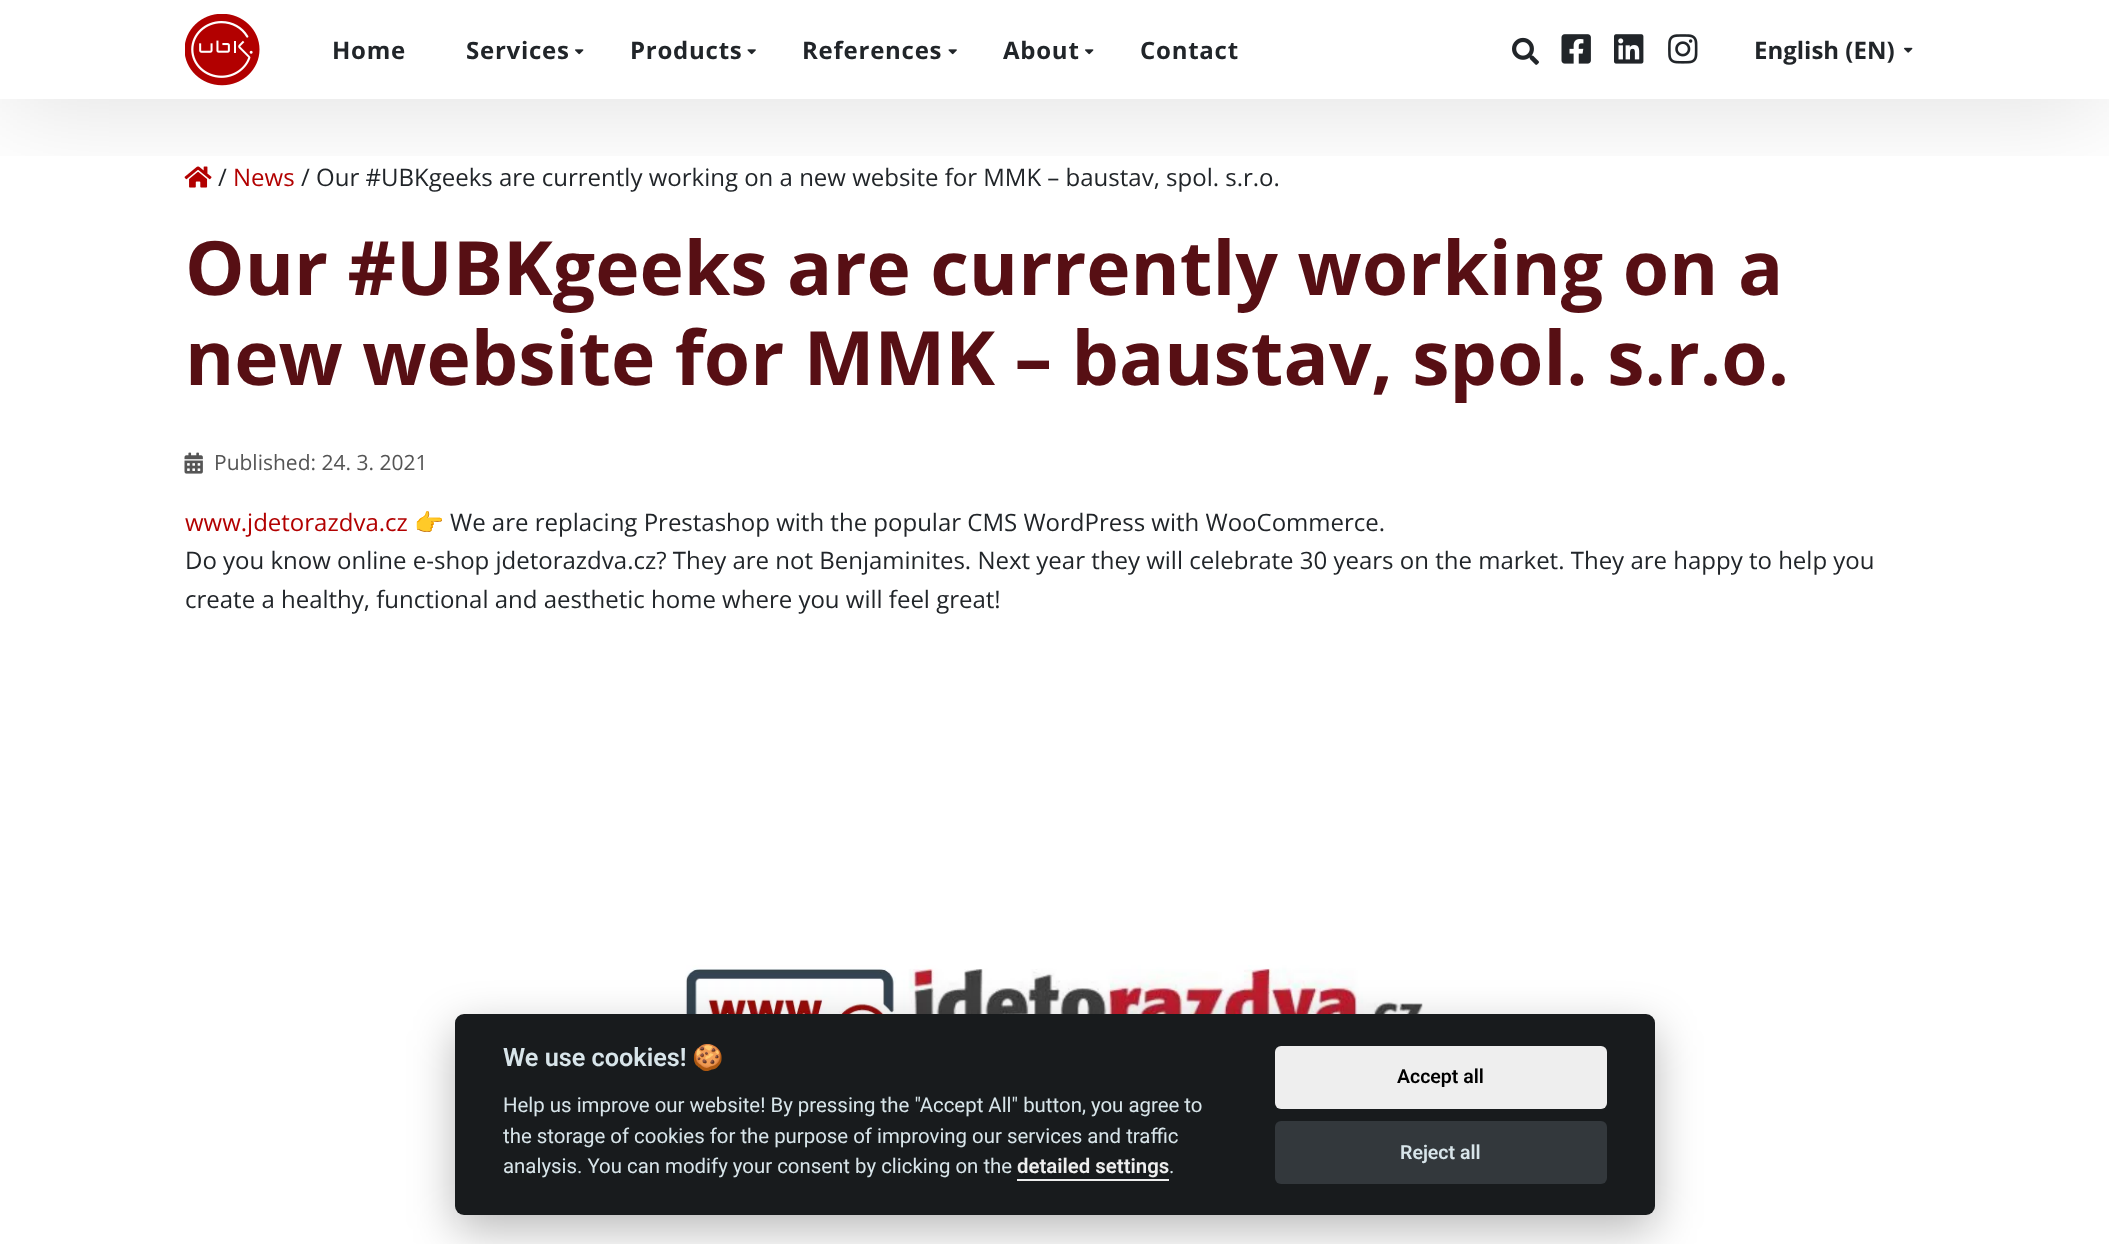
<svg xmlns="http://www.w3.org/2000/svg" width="2109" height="1244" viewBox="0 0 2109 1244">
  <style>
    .t1 { font: bold 24px Open Sans; letter-spacing: 0.75px; fill: #212529; }
    .t2 { font: bold 24px Open Sans; fill: #212529; }
    .t3 { font: 24px Open Sans; fill: #212529; }
    .t4 { font: 24px Open Sans; fill: #b20000; }
    .t5 { font: bold 75px Open Sans; fill: #570f14; }
    .t6 { font: 21px Open Sans; fill: #555; }
    .t7 { font: 24px Noto Color Emoji; fill: #212529; }
    .t8 { font: 600 25.25px Roboto; fill: #d8e5ea; }
    .t9 { font: bold 25.25px Noto Color Emoji; fill: #d8e5ea; }
    .t10 { font: 20.4px Roboto; fill: #d8e5ea; }
    .t11 { font: 600 20.4px Roboto; fill: #eee; }
    .t12 { font: 600 19.5px Roboto; fill: #000; }
    .t13 { font: 600 19.5px Roboto; fill: #d8e5ea; }
  </style>
  <defs>
    <clipPath id="clip1"><rect x="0" y="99" width="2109" height="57"/></clipPath>
  </defs>
  <rect width="100%" height="100%" fill="#fff"/>
  <image x="184" y="166" width="28" height="22" href="images/9.png"/>
  <g clip-path="url(#clip1)">
    <rect x="0" y="0" width="2109" height="99" fill="#00000024" filter="blur(54px)"/>
  </g>
  <image x="185" y="14" width="75" height="72" href="images/1.png"/>
  <text x="332" y="59" class="t1">Home</text>
  <text x="466" y="59" class="t1">Services</text>
  <image x="575" y="49" width="9" height="6" href="images/2.png"/>
  <text x="630" y="59" class="t1">Products</text>
  <image x="747" y="49" width="9" height="6" href="images/3.png"/>
  <text x="802" y="59" class="t1">References</text>
  <image x="948" y="49" width="9" height="6" href="images/3.png"/>
  <text x="1003" y="59" class="t1">About</text>
  <image x="1085" y="49" width="9" height="6" href="images/2.png"/>
  <text x="1140" y="59" class="t1">Contact</text>
  <image x="1512" y="37" width="27" height="28" href="images/4.png"/>
  <image x="1561" y="34" width="30" height="30" href="images/5.png"/>
  <image x="1614" y="34" width="30" height="30" href="images/6.png"/>
  <image x="1668" y="34" width="30" height="30" href="images/7.png"/>
  <text x="1754" y="59" class="t2">English (EN)</text>
  <image x="1904" y="47" width="9" height="6" href="images/8.png"/>
  <text x="218" y="186" class="t3">/</text>
  <text x="233" y="186" class="t4">News</text>
  <text x="301" y="186" class="t3">/ Our #UBKgeeks are currently working on a new website for MMK – baustav, spol. s.r.o.</text>
  <text x="185" y="295" class="t5">Our #UBKgeeks are currently working on a</text>
  <text x="185" y="385" class="t5">new website for MMK – baustav, spol. s.r.o.</text>
  <image x="184" y="452" width="19" height="22" href="images/10.png"/>
  <text x="214" y="470" class="t6">Published: 24. 3. 2021</text>
  <text x="185" y="531" class="t4">www.jdetorazdva.cz</text>
  <text x="414" y="531" class="t7">👉</text>
  <text x="450" y="531" class="t3">We are replacing Prestashop with the popular CMS WordPress with WooCommerce.</text>
  <text x="185" y="569" class="t3">Do you know online e-shop jdetorazdva.cz? They are not Benjaminites. Next year they will celebrate 30 years on the market. They are happy to help you</text>
  <text x="185" y="608" class="t3">create a healthy, functional and aesthetic home where you will feel great!</text>
  <image x="685" y="965" width="738" height="49" href="images/11.png"/>
  <rect x="455" y="1029" width="1200" height="201" rx="9" fill="#02020347" filter="blur(22.5px)"/>
  <rect x="455" y="1014" width="1200" height="201" rx="9" fill="#181b1d"/>
  <text x="503" y="1066" class="t8">We use cookies!</text>
  <text x="692" y="1066" class="t9">🍪</text>
  <text x="503" y="1112" class="t10">Help us improve our website! By pressing the "Accept All" button, you agree to</text>
  <text x="503" y="1143" class="t10">the storage of cookies for the purpose of improving our services and traffic</text>
  <text x="503" y="1173" class="t10">analysis. You can modify your consent by clicking on the</text>
  <text x="1017" y="1173" class="t11">detailed settings</text>
  <rect x="1017" y="1179" width="152" height="2" fill="#eee"/>
  <text x="1169" y="1173" class="t10">.</text>
  <rect x="1275" y="1046" width="332" height="63" rx="6" fill="#eee"/>
  <text x="1397" y="1083" class="t12">Accept all</text>
  <rect x="1275" y="1121" width="332" height="63" rx="6" fill="#33383c"/>
  <text x="1400" y="1159" class="t13">Reject all</text>
</svg>
